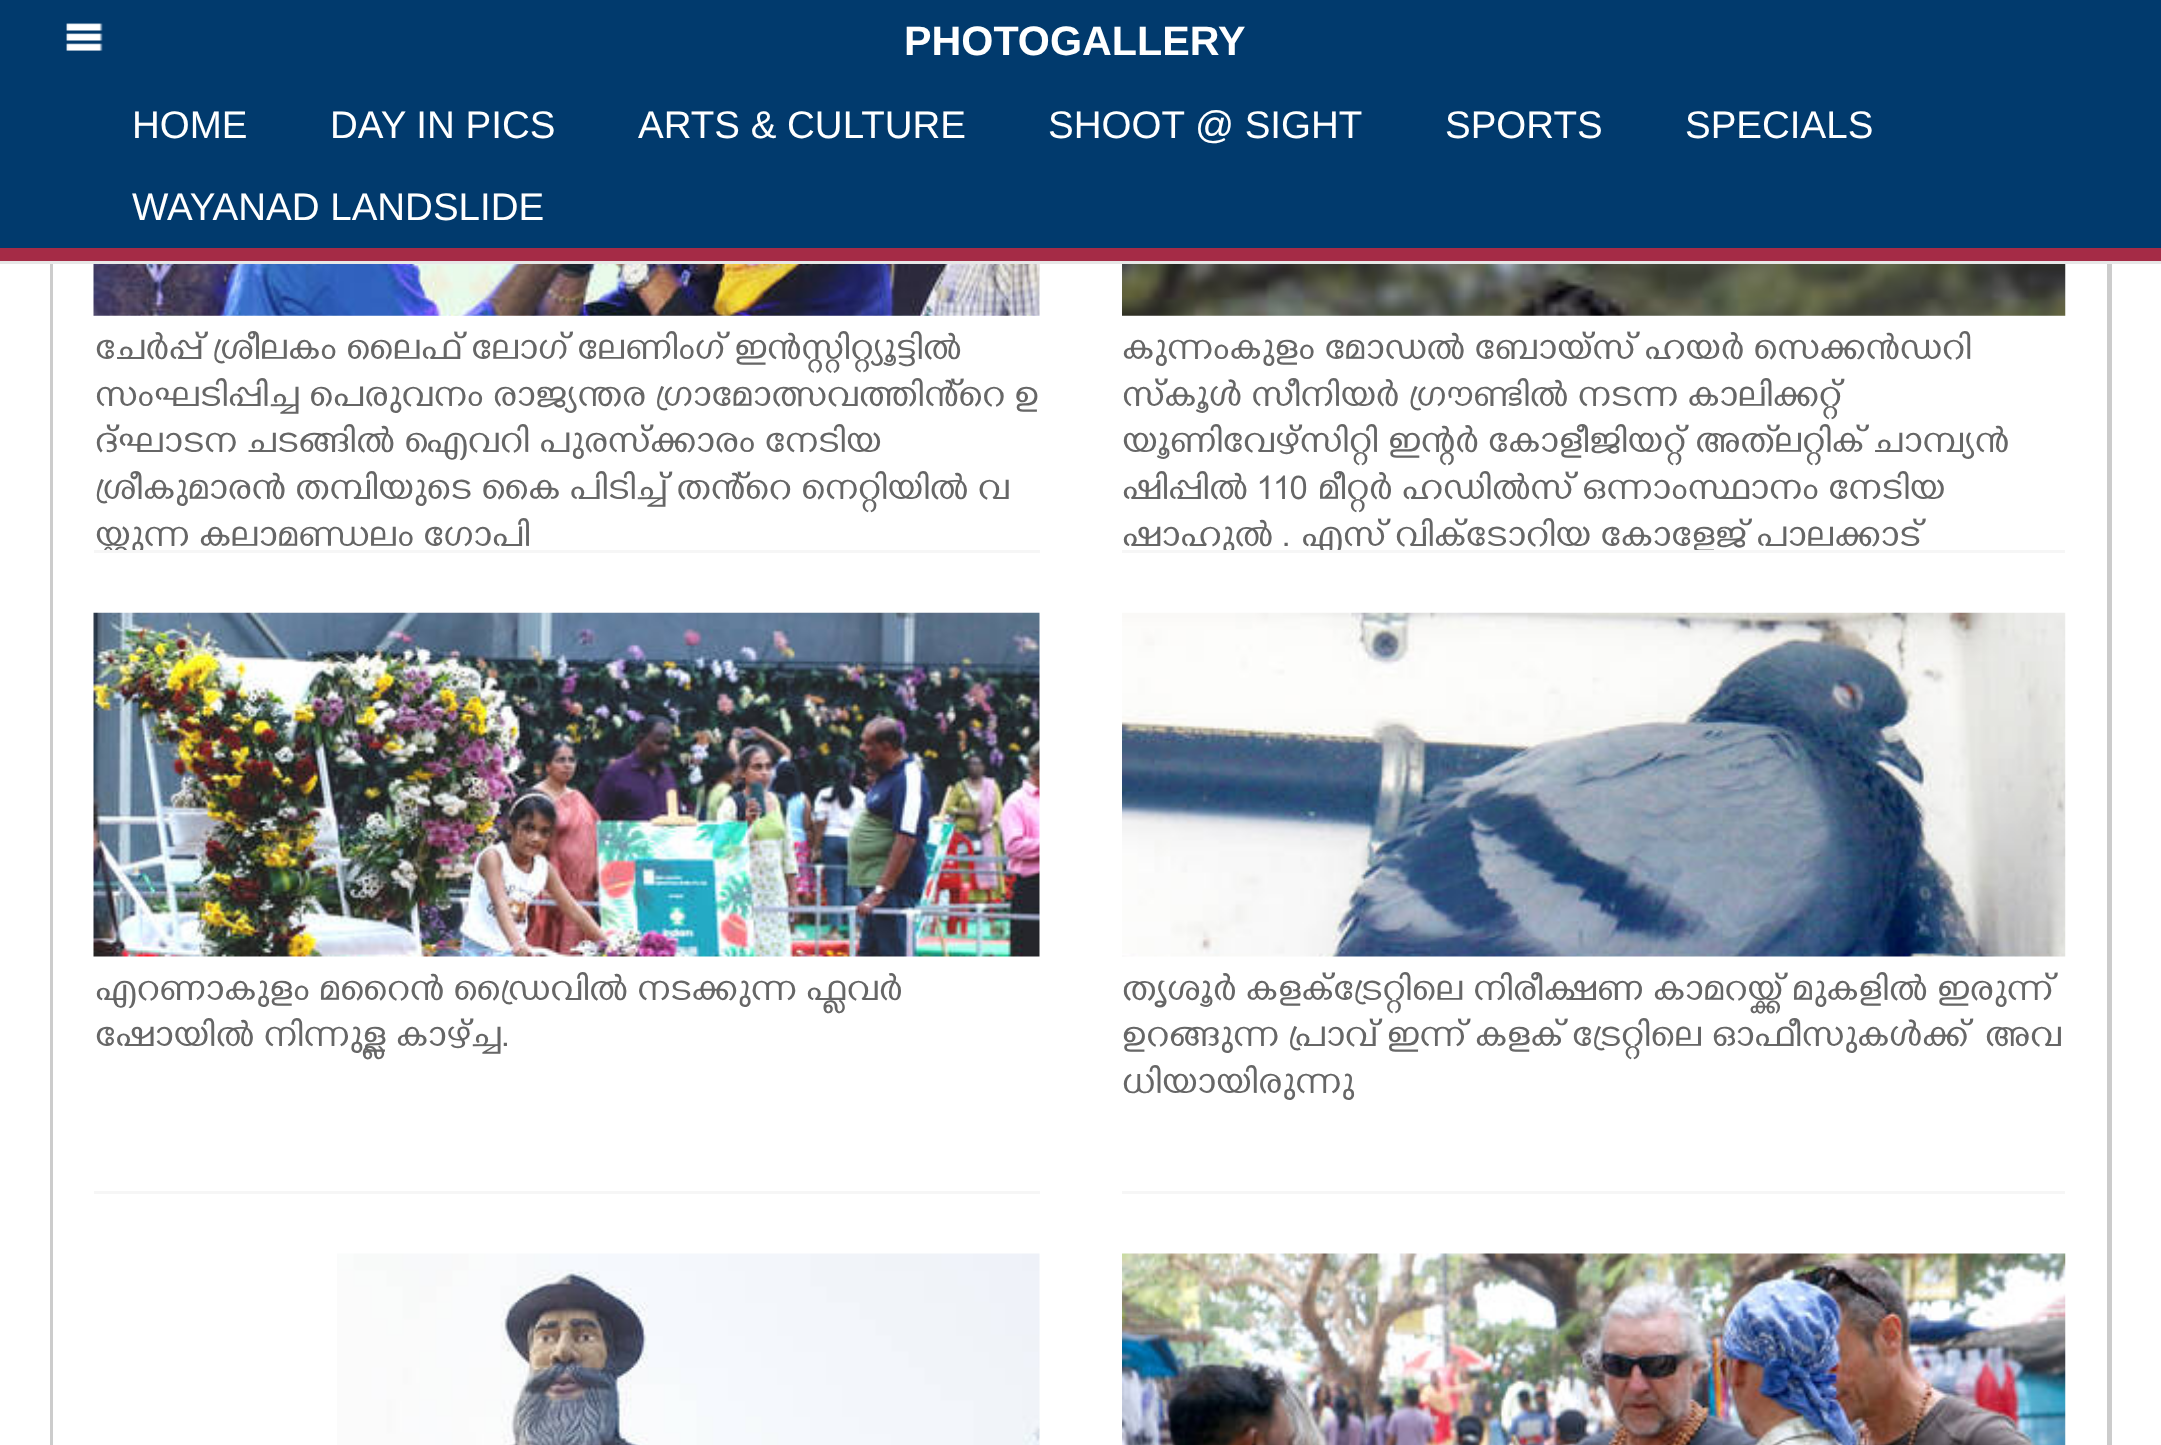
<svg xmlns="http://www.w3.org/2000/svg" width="2161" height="1445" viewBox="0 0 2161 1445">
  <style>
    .t1 { font: bold 41.25px Liberation Sans; fill: #fff; }
    .t2 { font: 38.5px Liberation Sans; fill: #fff; }
    .t3 { font: 32.75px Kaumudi; fill: #666; }
  </style>
  <defs>
    <clipPath id="clip1"><rect x="94" y="330" width="946" height="220"/></clipPath>
    <clipPath id="clip2"><rect x="1122" y="330" width="943" height="220"/></clipPath>
    <clipPath id="clip3"><rect x="1122" y="971" width="943" height="220"/></clipPath>
  </defs>
  <rect width="100%" height="100%" fill="#fff"/>
  <rect x="0" y="0" width="2161" height="248" fill="#013a6d"/>
  <rect x="0" y="261" width="2161" height="3" fill="#e7e7e7"/>
  <image x="66" y="23" width="37" height="28" href="images/1.png"/>
  <text x="904" y="55" class="t1">PHOTOGALLERY</text>
  <text x="132" y="138" class="t2">HOME</text>
  <text x="330" y="138" class="t2">DAY IN PICS</text>
  <text x="638" y="138" class="t2">ARTS &amp; CULTURE</text>
  <text x="1048" y="138" class="t2">SHOOT @ SIGHT</text>
  <text x="1445" y="138" class="t2">SPORTS</text>
  <text x="1685" y="138" class="t2">SPECIALS</text>
  <text x="132" y="220" class="t2">WAYANAD LANDSLIDE</text>
  <rect x="0" y="248" width="2161" height="13" fill="#a52b46"/>
  <rect x="2107" y="264" width="5" height="1181" fill="#ccc"/>
  <rect x="50" y="264" width="3" height="1181" fill="#ccc"/>
  <rect x="94" y="550" width="946" height="3" fill="#f6f6f6"/>
  <image x="93" y="264" width="947" height="52" href="images/2.png"/>
  <text x="94" y="359" class="t3">ചേർപ്പ് ശ്രീലകം ലൈഫ് ലോഗ് ലേണിംഗ് ഇൻസ്റ്റിറ്റ്യൂട്ടിൽ</text>
  <text x="94" y="406" class="t3">സംഘടിപ്പിച്ച പെരുവനം രാജ്യന്തര ഗ്രാമോത്സവത്തിൻ്റെ ഉ</text>
  <text x="94" y="452" class="t3">ദ്ഘാടന ചടങ്ങിൽ ഐവറി പുരസ്ക്കാരം നേടിയ</text>
  <g clip-path="url(#clip1)">
    <text x="94" y="499" class="t3">ശ്രീകുമാരൻ തമ്പിയുടെ കൈ പിടിച്ച് തൻ്റെ നെറ്റിയിൽ വ</text>
    <text x="94" y="546" class="t3">യ്ക്കുന്ന കലാമണ്ഡലം ഗോപി</text>
  </g>
  <rect x="1122" y="550" width="943" height="3" fill="#f6f6f6"/>
  <image x="1122" y="264" width="944" height="52" href="images/3.png"/>
  <text x="1121" y="359" class="t3">കുന്നംകുളം മോഡൽ ബോയ്സ് ഹയർ സെക്കൻഡറി</text>
  <text x="1121" y="406" class="t3">സ്കൂൾ സീനിയർ ഗ്രൗണ്ടിൽ നടന്ന കാലിക്കറ്റ്</text>
  <g clip-path="url(#clip2)">
    <text x="1121" y="452" class="t3">യൂണിവേഴ്സിറ്റി ഇന്റർ കോളീജിയറ്റ് അത്‌ലറ്റിക് ചാമ്പ്യൻ</text>
    <text x="1121" y="499" class="t3">ഷിപ്പിൽ 110 മീറ്റർ ഹഡിൽസ് ഒന്നാംസ്ഥാനം നേടിയ</text>
    <text x="1121" y="546" class="t3">ഷാഹുൽ . എസ് വിക്ടോറിയ കോളേജ് പാലക്കാട്</text>
  </g>
  <rect x="94" y="1191" width="946" height="3" fill="#f6f6f6"/>
  <image x="93" y="612" width="947" height="345" href="images/4.png"/>
  <text x="94" y="1000" class="t3">എറണാകുളം മറൈൻ ഡ്രൈവിൽ നടക്കുന്ന ഫ്ലവർ</text>
  <text x="94" y="1046" class="t3">ഷോയിൽ നിന്നുള്ള കാഴ്ച്ച.</text>
  <rect x="1122" y="1191" width="943" height="3" fill="#f6f6f6"/>
  <image x="1122" y="612" width="944" height="345" href="images/5.png"/>
  <g clip-path="url(#clip3)">
    <text x="1121" y="1000" class="t3">തൃശൂർ കളക്ട്രേറ്റിലെ നിരീക്ഷണ കാമറയ്ക്ക് മുകളിൽ ഇരുന്ന്</text>
  </g>
  <text x="1121" y="1046" class="t3">ഉറങ്ങുന്ന പ്രാവ് ഇന്ന് കളക് ട്രേറ്റിലെ ഓഫീസുകൾക്ക്</text>
  <text x="1984" y="1046" class="t3">അവ</text>
  <g clip-path="url(#clip3)">
    <text x="1121" y="1093" class="t3">ധിയായിരുന്നു</text>
  </g>
  <image x="337" y="1253" width="703" height="192" href="images/6.png"/>
  <image x="1122" y="1253" width="944" height="192" href="images/7.png"/>
</svg>
